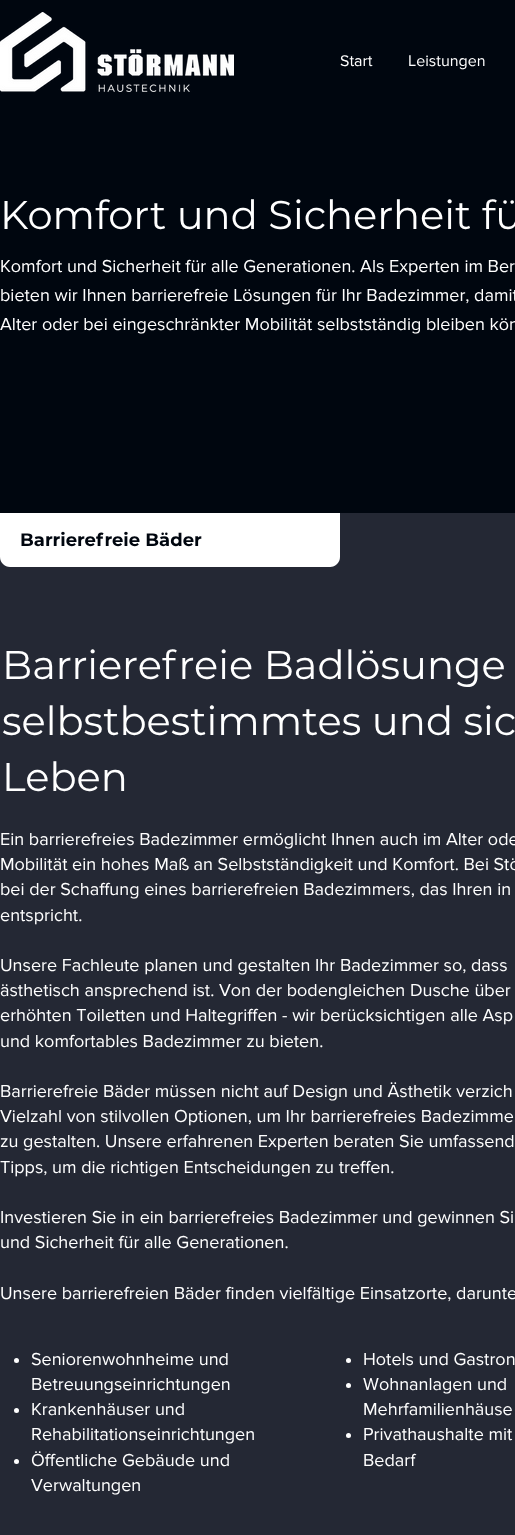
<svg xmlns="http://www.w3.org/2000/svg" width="515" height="1535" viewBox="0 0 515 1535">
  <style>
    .t1 { font: 16px 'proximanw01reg'; fill: #fff; }
    .t2 { font: 40px Montserrat; fill: #fff; }
    .t3 { font: 18px 'proximanw01reg'; fill: #fff; }
    .t4 { font: bold 18px Montserrat; fill: #00060f; }
  </style>
  <rect width="100%" height="100%" fill="#00060f"/>
  <image x="0" y="12" width="234" height="80" href="images/1.png"/>
  <text x="340" y="66" class="t1">Start</text>
  <text x="408" y="66" class="t1">Leistungen</text>
  <text x="0" y="229" class="t2">Komfort und Sicherheit fü</text>
  <text x="0" y="272" class="t3">Komfort und Sicherheit für alle Generationen. Als Experten im Ber</text>
  <text x="0" y="301" class="t3">bieten wir Ihnen barrierefreie Lösungen für Ihr Badezimmer, damit</text>
  <text x="0" y="330" class="t3">Alter oder bei eingeschränkter Mobilität selbstständig bleiben kön</text>
  <rect x="0" y="513" width="515" height="1022" fill="#242834"/>
  <path d="M0 513H340V557C340 562.5 335.5 567 330 567H10C4.5 567 0 562.5 0 557Z" fill="#fff"/>
  <text x="20" y="546" class="t4">Barrierefreie Bäder</text>
  <text x="2" y="679" class="t2">Barrierefreie Badlösunge</text>
  <text x="2" y="735" class="t2">selbstbestimmtes und sic</text>
  <text x="2" y="791" class="t2">Leben</text>
  <text x="0" y="845" class="t3">Ein barrierefreies Badezimmer ermöglicht Ihnen auch im Alter ode</text>
  <text x="0" y="870" class="t3">Mobilität ein hohes Maß an Selbstständigkeit und Komfort. Bei Stö</text>
  <text x="0" y="895" class="t3">bei der Schaffung eines barrierefreien Badezimmers, das Ihren in</text>
  <text x="0" y="921" class="t3">entspricht.</text>
  <text x="0" y="971" class="t3">Unsere Fachleute planen und gestalten Ihr Badezimmer so, dass</text>
  <text x="0" y="996" class="t3">ästhetisch ansprechend ist. Von der bodengleichen Dusche über</text>
  <text x="0" y="1021" class="t3">erhöhten Toiletten und Haltegriffen - wir berücksichtigen alle Asp</text>
  <text x="0" y="1047" class="t3">und komfortables Badezimmer zu bieten.</text>
  <text x="0" y="1097" class="t3">Barrierefreie Bäder müssen nicht auf Design und Ästhetik verzich</text>
  <text x="0" y="1122" class="t3">Vielzahl von stilvollen Optionen, um Ihr barrierefreies Badezimme</text>
  <text x="0" y="1147" class="t3">zu gestalten. Unsere erfahrenen Experten beraten Sie umfassend</text>
  <text x="0" y="1173" class="t3">Tipps, um die richtigen Entscheidungen zu treffen.</text>
  <text x="0" y="1223" class="t3">Investieren Sie in ein barrierefreies Badezimmer und gewinnen Si</text>
  <text x="0" y="1248" class="t3">und Sicherheit für alle Generationen.</text>
  <text x="0" y="1299" class="t3">Unsere barrierefreien Bäder finden vielfältige Einsatzorte, darunte</text>
  <circle cx="16.5" cy="1360.5" r="2.5" fill="#fff"/>
  <text x="31" y="1365" class="t3">Seniorenwohnheime und</text>
  <text x="31" y="1390" class="t3">Betreuungseinrichtungen</text>
  <circle cx="16.5" cy="1410.5" r="2.5" fill="#fff"/>
  <text x="31" y="1415" class="t3">Krankenhäuser und</text>
  <text x="31" y="1440" class="t3">Rehabilitationseinrichtungen</text>
  <circle cx="16.5" cy="1461.5" r="2.5" fill="#fff"/>
  <text x="31" y="1466" class="t3">Öffentliche Gebäude und</text>
  <text x="31" y="1491" class="t3">Verwaltungen</text>
  <circle cx="348.5" cy="1360.5" r="2.5" fill="#fff"/>
  <text x="363" y="1365" class="t3">Hotels und Gastron</text>
  <circle cx="348.5" cy="1385.5" r="2.5" fill="#fff"/>
  <text x="363" y="1390" class="t3">Wohnanlagen und</text>
  <text x="363" y="1415" class="t3">Mehrfamilienhäuse</text>
  <circle cx="348.5" cy="1435.5" r="2.5" fill="#fff"/>
  <text x="363" y="1440" class="t3">Privathaushalte mit</text>
  <text x="363" y="1466" class="t3">Bedarf</text>
</svg>
